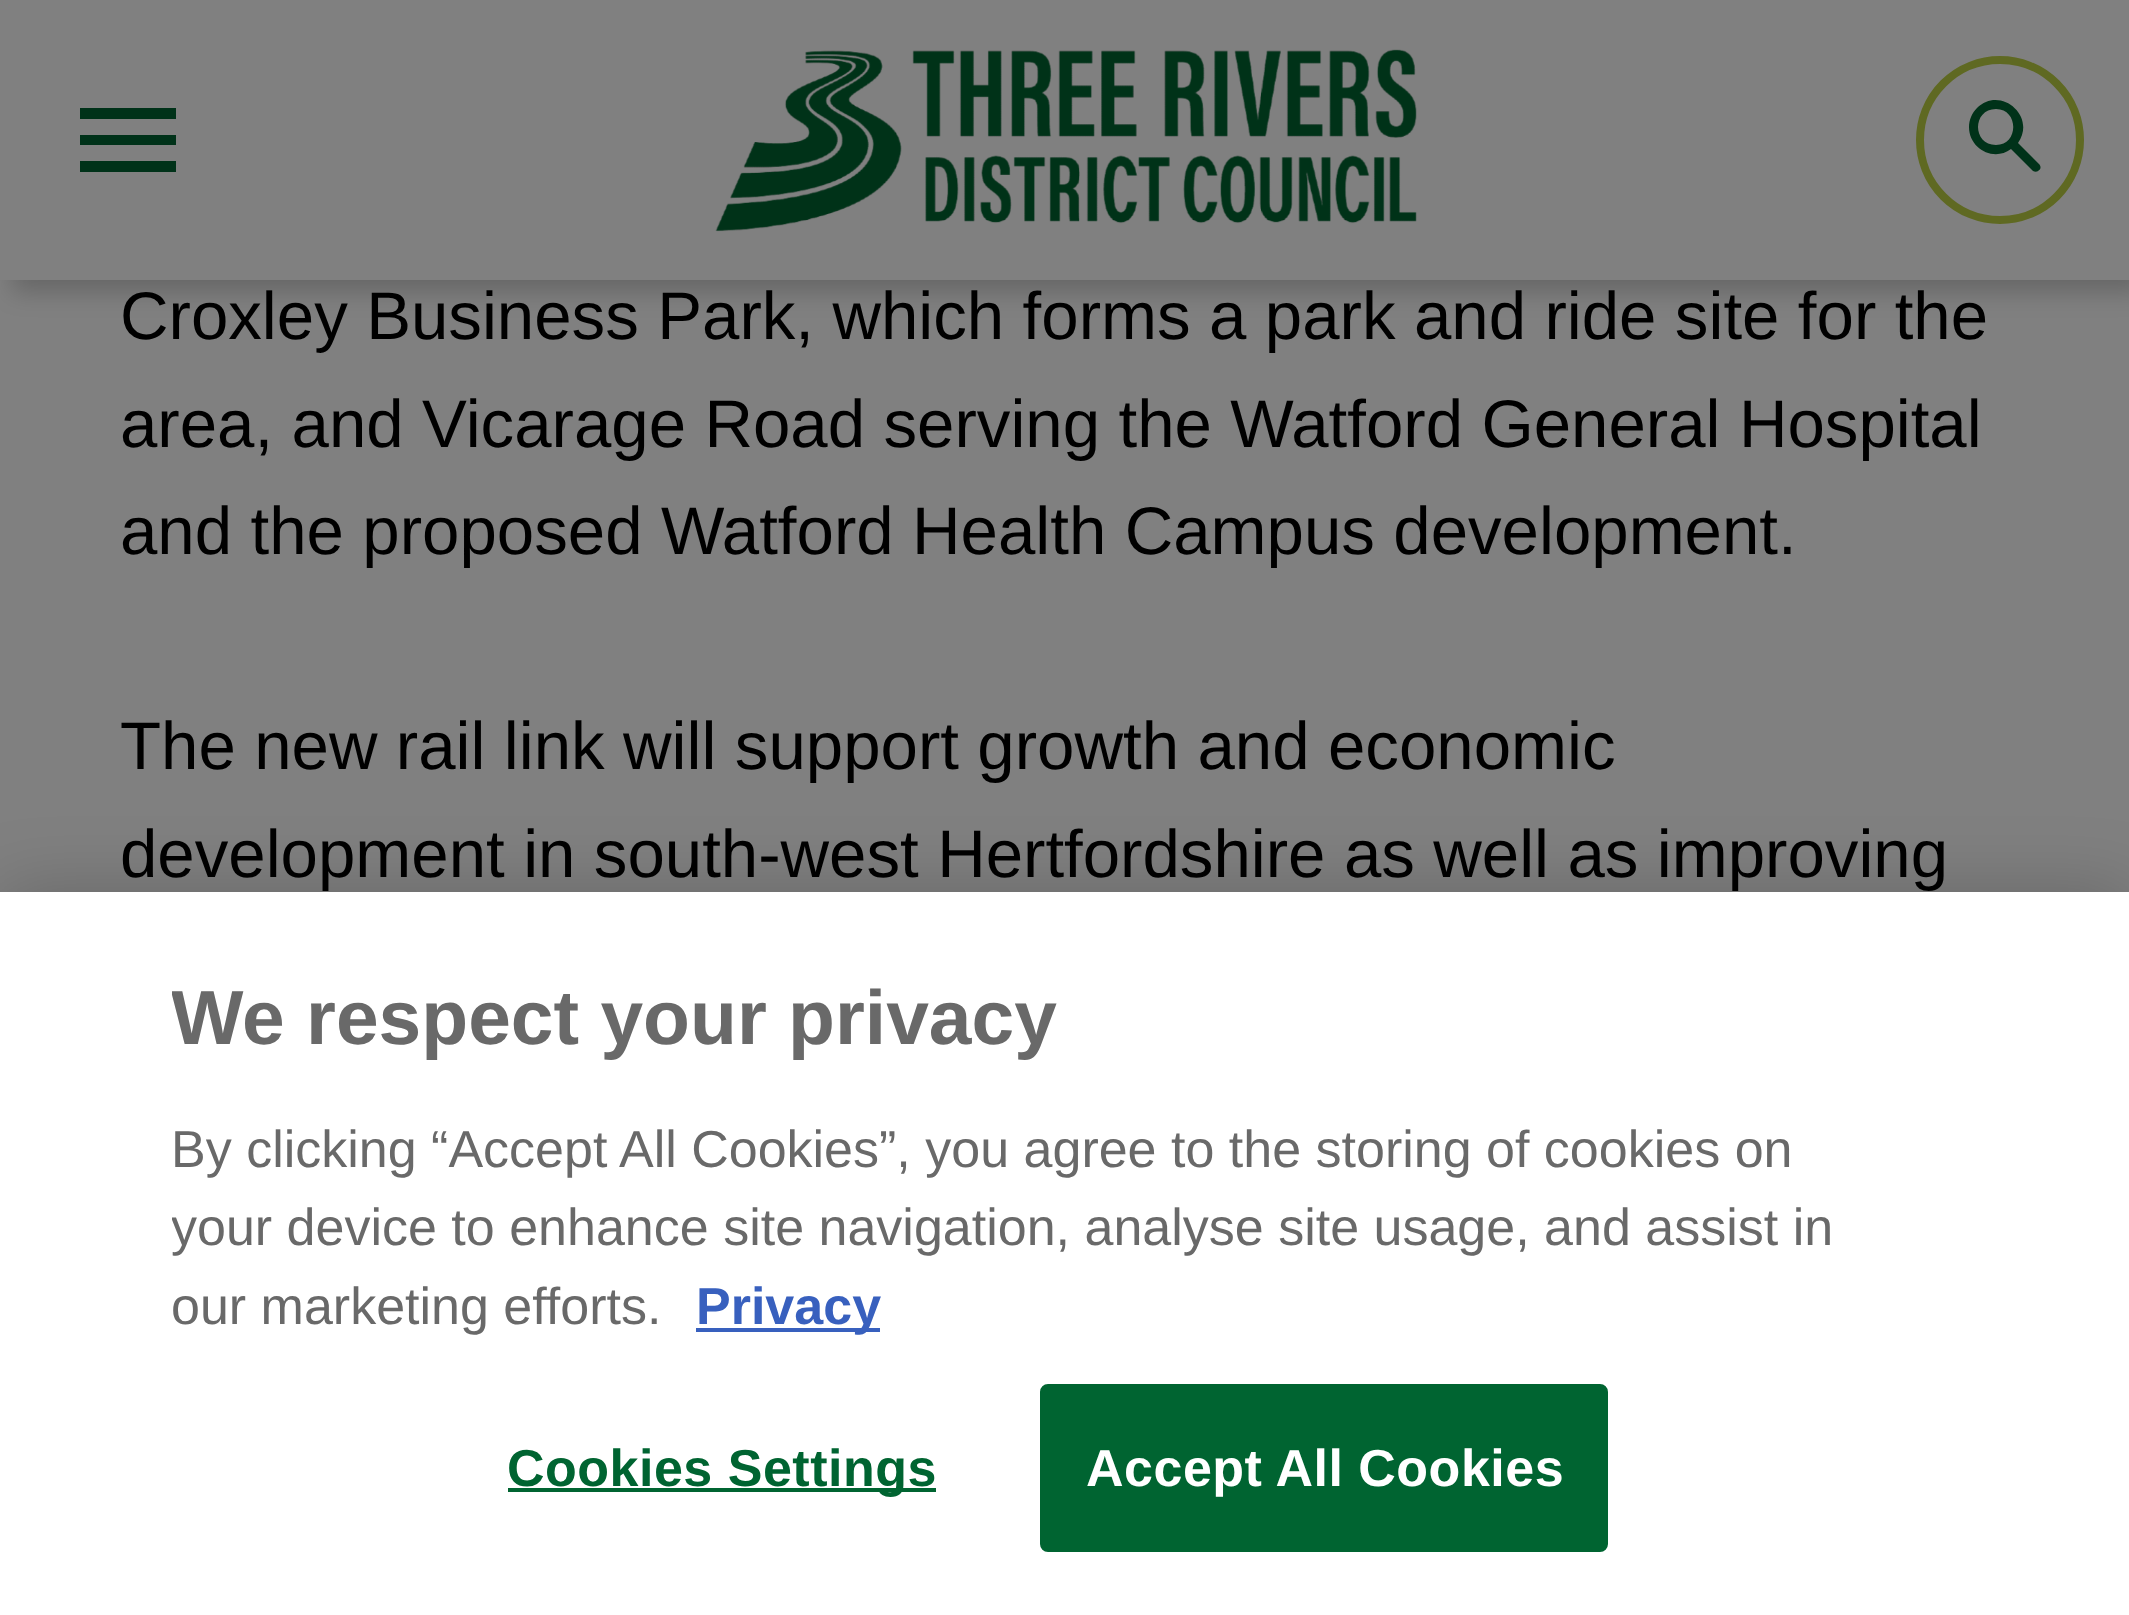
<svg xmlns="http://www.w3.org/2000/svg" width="2129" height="1615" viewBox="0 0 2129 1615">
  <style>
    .t1 { font: 67.2px Liberation Sans; fill: #000; }
    .t2 { font: bold 76.75px Liberation Sans; fill: #696969; }
    .t3 { font: 52px Liberation Sans; fill: #696969; }
    .t4 { font: bold 52px Liberation Sans; fill: #3860be; }
    .t5 { font: bold 52px Liberation Sans; letter-spacing: 0.5px; fill: #006431; }
    .t6 { font: bold 52px Liberation Sans; letter-spacing: 0.5px; fill: #fff; }
  </style>
  <defs>
    <clipPath id="clip1"><rect x="172" y="972" width="1692" height="372"/></clipPath>
  </defs>
  <rect width="100%" height="100%" fill="#808080"/>
  <rect x="12" y="12" width="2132" height="280" fill="#00000033" filter="blur(12px)"/>
  <rect x="0" y="0" width="2129" height="280" fill="#808080"/>
  <path d="M80 172H176V161H80ZM80 145H176V135H80ZM80 108V119H176V108Z" fill="#003219"/>
  <image x="715" y="49" width="702" height="183" href="images/1.png"/>
  <circle cx="2000" cy="140" r="80" fill="none" stroke="#5f6922" stroke-width="8"/>
  <path d="M1996 109C1972 109 1972 145 1996 145C2019 145 2019 109 1996 109ZM1969 127C1969 120 1972 113 1977 108C2000 85 2037 116 2018 143L2039 164C2041 166 2041 169 2039 170C2038 172 2035 172 2033 171L2011 149C1994 162 1969 149 1969 127Z" fill="#003219" fill-rule="evenodd"/>
  <text x="120" y="339" word-spacing="-0.25" class="t1">Croxley Business Park, which forms a park and ride site for the</text>
  <text x="120" y="447" word-spacing="-0.25" class="t1">area, and Vicarage Road serving the Watford General Hospital</text>
  <text x="120" y="554" word-spacing="-0.25" class="t1">and the proposed Watford Health Campus development.</text>
  <text x="120" y="769" word-spacing="-0.25" class="t1">The new rail link will support growth and economic</text>
  <text x="120" y="877" word-spacing="-0.25" class="t1">development in south-west Hertfordshire as well as improving</text>
  <rect x="0" y="892" width="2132" height="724" fill="#00000033" filter="blur(36px)"/>
  <rect x="0" y="892" width="2129" height="723" fill="#fff"/>
  <g clip-path="url(#clip1)">
    <text x="171" y="1044" class="t2">We respect your privacy</text>
  </g>
  <text x="171" y="1167" class="t3">By clicking “Accept All Cookies”, you agree to the storing of cookies on</text>
  <g clip-path="url(#clip1)">
    <text x="171" y="1245" class="t3">your device to enhance site navigation, analyse site usage, and assist in</text>
  </g>
  <text x="171" y="1324" class="t3">our marketing efforts.</text>
  <rect x="696" y="1328" width="184" height="4" fill="#3860be"/>
  <text x="696" y="1324" class="t4">Privacy</text>
  <rect x="508" y="1488" width="428" height="4" fill="#006431"/>
  <text x="507" y="1486" class="t5">Cookies Settings</text>
  <rect x="1042" y="1386" width="564" height="164" rx="6" fill="#006431" stroke="#006431" stroke-width="4"/>
  <text x="1086" y="1486" class="t6">Accept All Cookies</text>
</svg>
